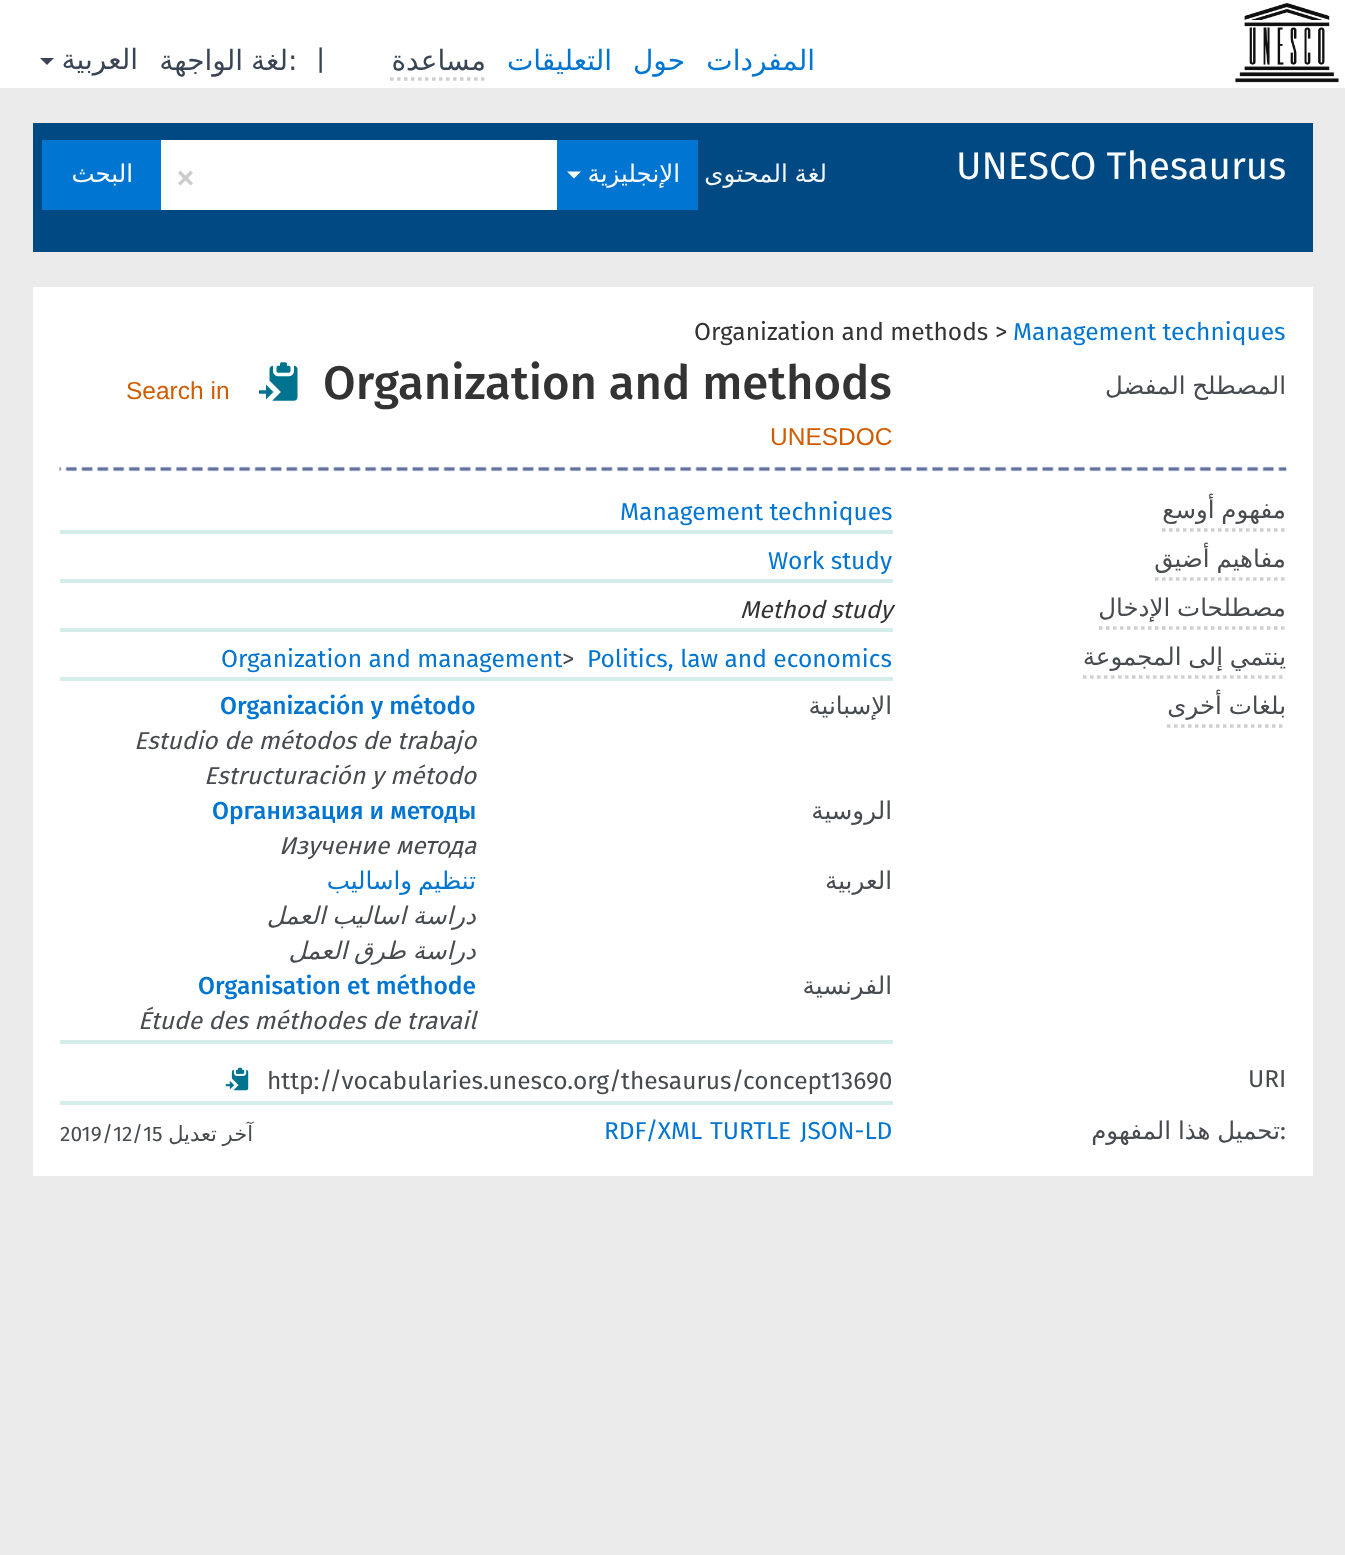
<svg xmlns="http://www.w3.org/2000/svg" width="1345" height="1555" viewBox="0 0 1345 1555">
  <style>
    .t1 { font: 28px DejaVu Sans; direction: rtl; fill: #394554; }
    .t2 { font: 28px DejaVu Sans; fill: #394554; }
    .t3 { font: 28px Fira Sans; fill: #394554; }
    .t4 { font: 28px DejaVu Sans; direction: rtl; fill: #0075d1; }
    .t5 { font: 24.5px DejaVu Sans; direction: rtl; fill: #fcfdfe; }
    .t6 { font: 42px Fira Sans; fill: #ccc; }
    .t7 { font: 24.5px DejaVu Sans; direction: rtl; fill: #f2f6f9; }
    .t8 { font: 38.5px Fira Sans; fill: #fcfdfe; }
    .t9 { font: 24.5px Fira Sans; fill: #333; }
    .t10 { font: 24.5px Fira Sans; fill: #0075d1; }
    .t11 { font: 24.5px Liberation Sans; fill: #d15c00; }
    .t12 { font: 500 47.25px Fira Sans; fill: #333; }
    .t13 { font: 24.5px DejaVu Sans; direction: rtl; fill: #474b4f; }
    .t14 { font: italic 24.5px Fira Sans; fill: #333; }
    .t15 { font: 24.5px Fira Sans; fill: #474b4f; }
    .t16 { font: 500 24.5px Fira Sans; fill: #0075d1; }
    .t17 { font: italic 24.5px Fira Sans; fill: #474b4f; }
    .t18 { font: 24.5px DejaVu Sans; direction: rtl; fill: #0075d1; }
    .t19 { font: italic 24.5px DejaVu Sans; direction: rtl; fill: #474b4f; }
    .t20 { font: 21px Fira Sans; fill: #474b4f; }
    .t21 { font: 21px Fira Sans; direction: rtl; fill: #474b4f; }
    .t22 { font: 21px DejaVu Sans; direction: rtl; fill: #474b4f; }
  </style>
  <rect width="100%" height="100%" fill="#ebebeb"/>
  <rect x="0" y="0" width="1345" height="88" fill="#fff"/>
  <image x="1235" y="3" width="104" height="80" href="images/1.png"/>
  <path d="M40 58H54L47 65Z" fill="#394554"/>
  <text x="138" y="69" class="t1">العربية</text>
  <text x="288" y="70" word-spacing="-1" class="t1">لغة الواجهة</text>
  <text x="288" y="70" class="t2">:</text>
  <text x="315" y="70" class="t3">|</text>
  <text x="486" y="70" class="t1">مساعدة</text>
  <path d="M390 79H486.5" fill="none" stroke="#cfcfcf" stroke-width="3.5" stroke-dasharray="3.5 3.5"/>
  <text x="612" y="70" class="t4">التعليقات</text>
  <text x="685" y="70" class="t4">حول</text>
  <text x="815" y="70" class="t4">المفردات</text>
  <rect x="33" y="123" width="1280" height="129" fill="#004983"/>
  <rect x="42" y="140" width="119" height="70" fill="#0075d1"/>
  <text x="133" y="182" class="t5">البحث</text>
  <rect x="161" y="140" width="396" height="70" fill="#fff"/>
  <text x="175" y="191" class="t6">×</text>
  <rect x="557" y="140" width="141" height="70" fill="#0075d1"/>
  <path d="M567 171.5H581L574 178.5Z" fill="#fff"/>
  <text x="680" y="182" class="t5">الإنجليزية</text>
  <text x="827" y="182" word-spacing="-1" class="t7">لغة المحتوى</text>
  <text x="956" y="179" class="t8">UNESCO Thesaurus</text>
  <rect x="33" y="287" width="1280" height="889" fill="#fff"/>
  <text x="694" y="340" class="t9">Organization and methods</text>
  <text x="995" y="340" class="t9">&gt;</text>
  <text x="1013" y="340" class="t10">Management techniques</text>
  <text x="126" y="399" class="t11">Search in</text>
  <image x="259" y="362" width="39" height="39" href="images/2.png"/>
  <text x="323" y="399" class="t12">Organization and methods</text>
  <text x="770" y="445" class="t11">UNESDOC</text>
  <text x="1286" y="394" word-spacing="-1" class="t13">المصطلح المفضل</text>
  <image x="59" y="466" width="1228" height="6" href="images/3.png"/>
  <rect x="60" y="530" width="833" height="4" fill="#d4edeb"/>
  <text x="620" y="520" class="t10">Management techniques</text>
  <path d="M1162 530H1286" fill="none" stroke="#cfcfcf" stroke-width="3.5" stroke-dasharray="3.5 3.5"/>
  <text x="1286" y="518" word-spacing="-1" class="t13">مفهوم أوسع</text>
  <rect x="60" y="579" width="833" height="4" fill="#d4edeb"/>
  <text x="768" y="569" class="t10">Work study</text>
  <path d="M1155 579H1286" fill="none" stroke="#cfcfcf" stroke-width="3.5" stroke-dasharray="3.5 3.5"/>
  <text x="1286" y="567" word-spacing="-1" class="t13">مفاهيم أضيق</text>
  <rect x="60" y="628" width="833" height="4" fill="#d4edeb"/>
  <text x="740" y="618" class="t14">Method study</text>
  <path d="M1099 628H1286" fill="none" stroke="#cfcfcf" stroke-width="3.5" stroke-dasharray="3.5 3.5"/>
  <text x="1286" y="616" word-spacing="-1" class="t13">مصطلحات الإدخال</text>
  <rect x="60" y="677" width="833" height="4" fill="#d4edeb"/>
  <text x="221" y="667" class="t10">Organization and management</text>
  <text x="562" y="667" class="t15">&gt;</text>
  <text x="587" y="667" class="t10">Politics, law and economics</text>
  <path d="M1083 677H1286" fill="none" stroke="#cfcfcf" stroke-width="3.5" stroke-dasharray="3.5 3.5"/>
  <text x="1286" y="665" word-spacing="-1" class="t13">ينتمي إلى المجموعة</text>
  <rect x="60" y="1040" width="833" height="4" fill="#d4edeb"/>
  <text x="220" y="714" class="t16">Organización y método</text>
  <text x="892" y="714" class="t13">الإسبانية</text>
  <text x="134" y="749" class="t17">Estudio de métodos de trabajo</text>
  <text x="204" y="784" class="t17">Estructuración y método</text>
  <text x="212" y="819" class="t16">Организация и методы</text>
  <text x="892" y="819" class="t13">الروسية</text>
  <text x="279" y="854" class="t17">Изучение метода</text>
  <text x="476" y="889" word-spacing="-2" class="t18">تنظيم واساليب</text>
  <text x="892" y="889" class="t13">العربية</text>
  <text x="476" y="924" word-spacing="-1" class="t19">دراسة اساليب العمل</text>
  <text x="476" y="959" word-spacing="-1" class="t19">دراسة طرق العمل</text>
  <text x="198" y="994" class="t16">Organisation et méthode</text>
  <text x="892" y="994" class="t13">الفرنسية</text>
  <text x="138" y="1029" class="t17">Étude des méthodes de travail</text>
  <path d="M1167 726H1286" fill="none" stroke="#cfcfcf" stroke-width="3.5" stroke-dasharray="3.5 3.5"/>
  <text x="1286" y="714" word-spacing="-1" class="t13">بلغات أخرى</text>
  <rect x="60" y="1101" width="833" height="4" fill="#d4edeb"/>
  <image x="225" y="1067" width="24" height="24" href="images/4.png"/>
  <text x="267" y="1089" class="t15">http://vocabularies.unesco.org/thesaurus/concept13690</text>
  <text x="1248" y="1087" class="t15">URI</text>
  <text x="60" y="1141" class="t20">2019</text>
  <text x="113" y="1141" class="t21">/</text>
  <text x="113" y="1141" class="t20">12</text>
  <text x="143" y="1141" class="t21">/</text>
  <text x="143" y="1141" class="t20">15</text>
  <text x="253" y="1141" word-spacing="-1" class="t22">آخر تعديل</text>
  <text x="604" y="1139" class="t10">RDF/XML</text>
  <text x="710" y="1139" class="t10">TURTLE</text>
  <text x="800" y="1139" class="t10">JSON-LD</text>
  <text x="1280" y="1139" word-spacing="-1" class="t13">تحميل هذا المفهوم</text>
  <text x="1280" y="1139" class="t15">:</text>
</svg>
